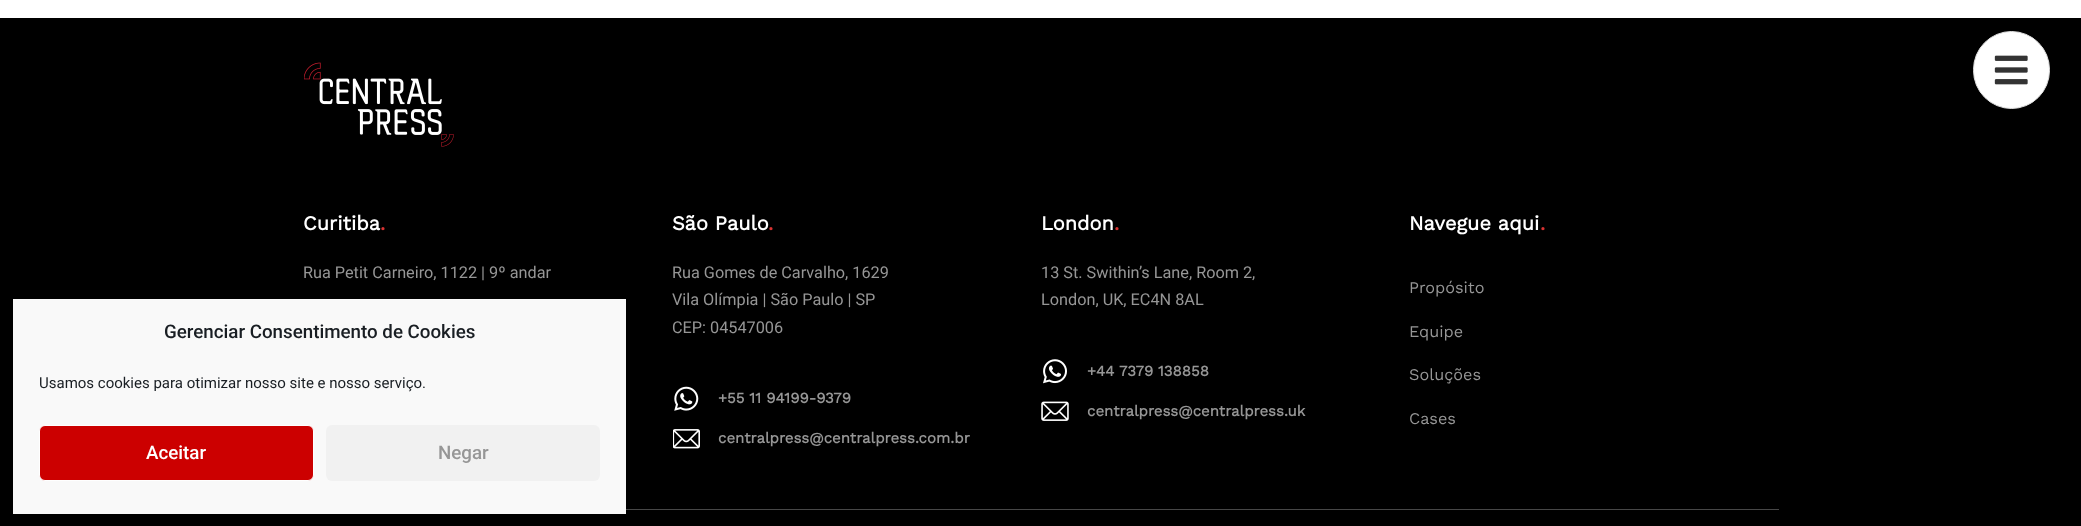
<svg xmlns="http://www.w3.org/2000/svg" width="2081" height="526" viewBox="0 0 2081 526">
  <style>
    .t1 { font: 500 18.75px Roboto; fill: #191e23; }
    .t2 { font: 15px Roboto; fill: #191e23; }
    .t3 { font: 500 18.75px Roboto; fill: #fff; }
    .t4 { font: 500 18.75px Roboto; fill: #969696; }
    .t5 { font: bold 20px Work Sans; fill: #fff; }
    .t6 { font: bold 20px Work Sans; fill: #da3332; }
    .t7 { font: 16.25px Roboto; fill: #969696; }
    .t8 { font: bold 15px Work Sans; fill: #969696; }
    .t9 { font: 16.25px Work Sans; fill: #969696; }
  </style>
  <rect width="100%" height="100%" fill="#fff"/>
  <rect x="0" y="18" width="2081" height="508" fill="#000"/>
  <rect x="1973.5" y="31.5" width="76" height="77" rx="38" fill="#fff" stroke="#e0e0e0"/>
  <image x="1994" y="55" width="34" height="30" href="images/1.png"/>
  <rect x="13" y="299" width="613" height="215" fill="#f9f9f9"/>
  <text x="164" y="338" class="t1">Gerenciar Consentimento de Cookies</text>
  <text x="39" y="388" class="t2">Usamos cookies para otimizar nosso site e nosso serviço.</text>
  <rect x="39.5" y="425.5" width="274" height="55" rx="5.5" fill="#c00" stroke="#fff"/>
  <text x="146" y="459" class="t3">Aceitar</text>
  <rect x="326" y="425" width="274" height="56" rx="6" fill="#f1f1f1"/>
  <text x="438" y="459" class="t4">Negar</text>
  <image x="304" y="62" width="150" height="85" href="images/2.png"/>
  <text x="303" y="230" class="t5">Curitiba</text>
  <text x="380" y="230" class="t6">.</text>
  <text x="303" y="278" class="t7">Rua Petit Carneiro, 1122 | 9º andar</text>
  <text x="672" y="230" class="t5">São Paulo</text>
  <text x="768" y="230" class="t6">.</text>
  <text x="672" y="278" class="t7">Rua Gomes de Carvalho, 1629</text>
  <text x="672" y="305" class="t7">Vila Olímpia | São Paulo | SP</text>
  <text x="672" y="333" class="t7">CEP: 04547006</text>
  <image x="674" y="386" width="25" height="25" href="images/3.png"/>
  <text x="718" y="403" class="t8">+55 11 94199-9379</text>
  <image x="673" y="429" width="27" height="20" href="images/4.png"/>
  <text x="718" y="443" class="t8">centralpress@centralpress.com.br</text>
  <text x="1041" y="230" class="t5">London</text>
  <text x="1114" y="230" class="t6">.</text>
  <text x="1041" y="278" class="t7">13 St. Swithin’s Lane, Room 2,</text>
  <text x="1041" y="305" class="t7">London, UK, EC4N 8AL</text>
  <image x="1043" y="359" width="24" height="25" href="images/5.png"/>
  <text x="1087" y="376" class="t8">+44 7379 138858</text>
  <image x="1041" y="401" width="28" height="20" href="images/6.png"/>
  <text x="1087" y="416" class="t8">centralpress@centralpress.uk</text>
  <text x="1409" y="230" class="t5">Navegue aqui</text>
  <text x="1540" y="230" class="t6">.</text>
  <text x="1409" y="293" class="t9">Propósito</text>
  <text x="1409" y="337" class="t9">Equipe</text>
  <text x="1409" y="380" class="t9">Soluções</text>
  <text x="1409" y="424" class="t9">Cases</text>
  <rect x="626" y="509" width="1153" height="1" fill="#474747"/>
</svg>
